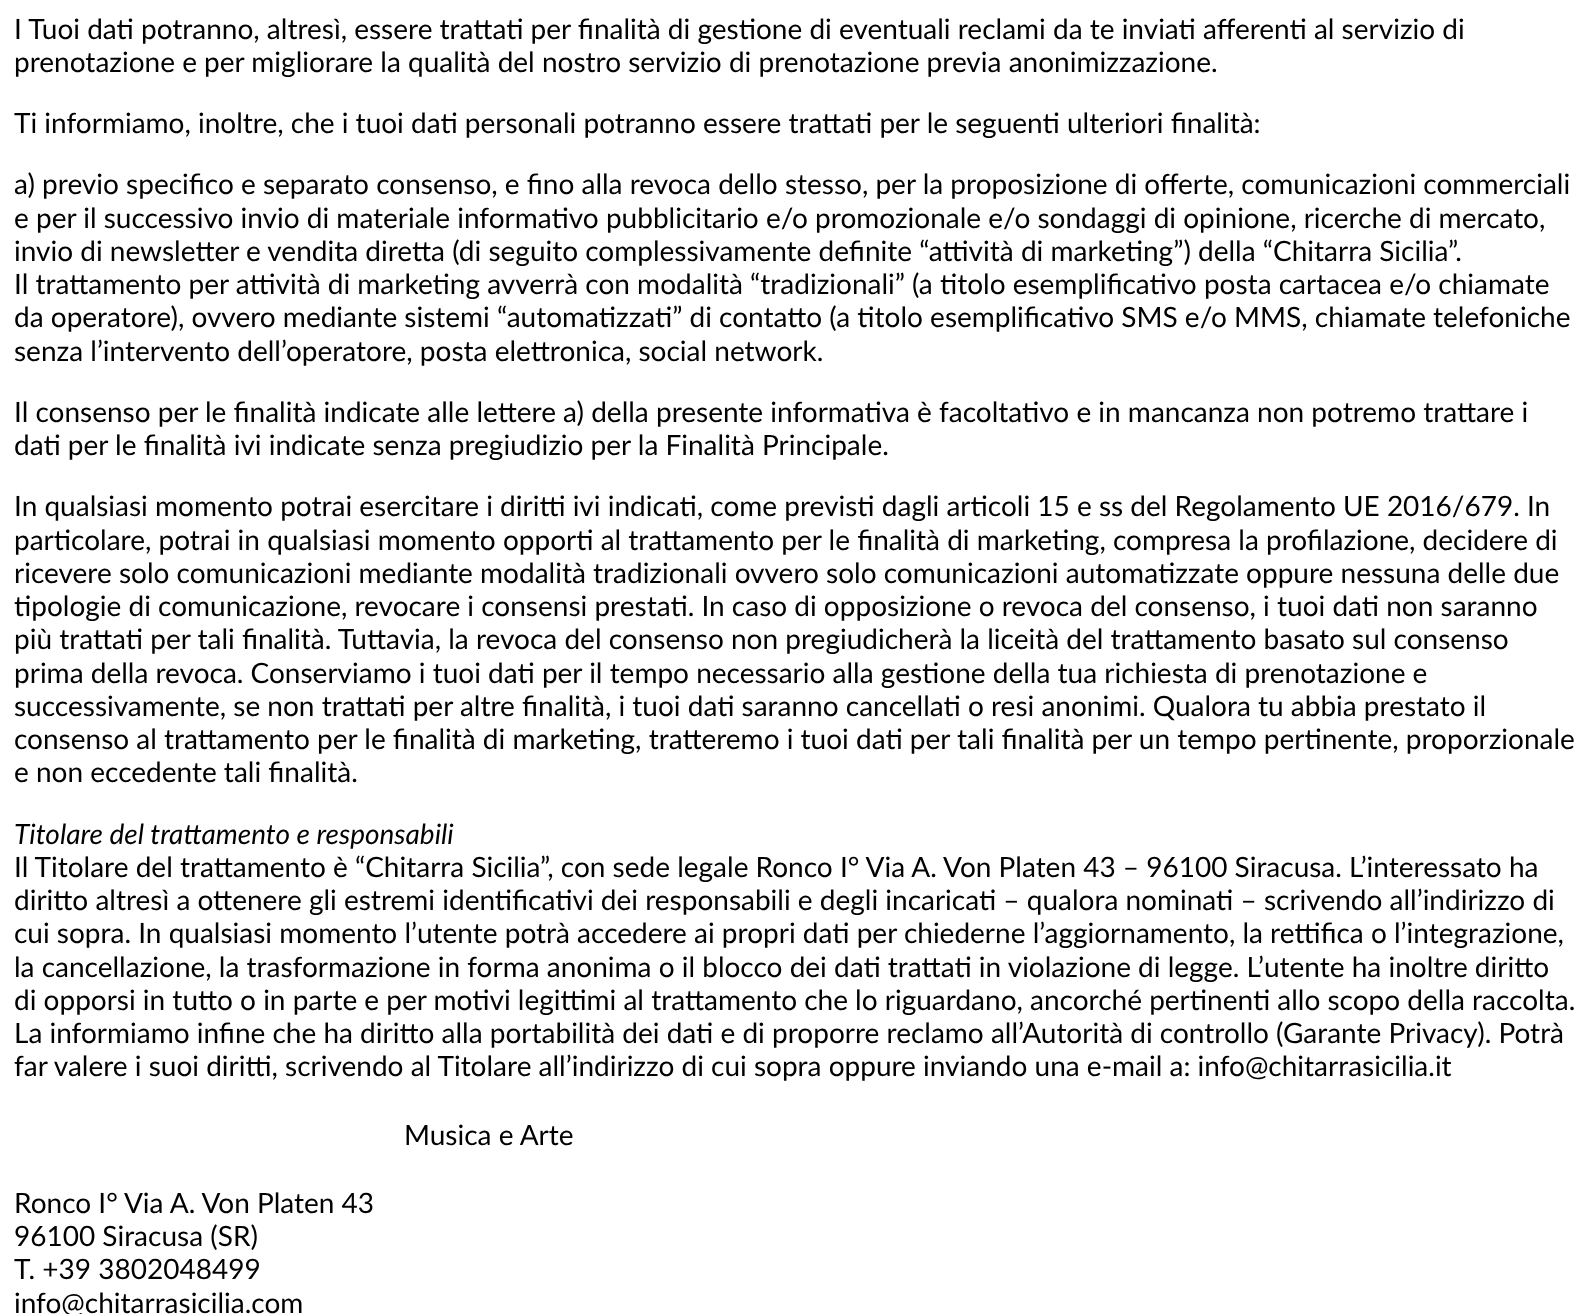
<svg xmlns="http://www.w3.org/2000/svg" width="1590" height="1314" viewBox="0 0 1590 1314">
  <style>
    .t1 { font: 28px Lato; fill: #000; }
    .t2 { font: italic 28px Lato; fill: #000; }
  </style>
  <rect width="100%" height="100%" fill="#fff"/>
  <text x="14" y="39" class="t1">I Tuoi dati potranno, altresì, essere trattati per finalità di gestione di eventuali reclami da te inviati afferenti al servizio di</text>
  <text x="14" y="72" class="t1">prenotazione e per migliorare la qualità del nostro servizio di prenotazione previa anonimizzazione.</text>
  <text x="14" y="133" class="t1">Ti informiamo, inoltre, che i tuoi dati personali potranno essere trattati per le seguenti ulteriori finalità:</text>
  <text x="14" y="194" class="t1">a) previo specifico e separato consenso, e fino alla revoca dello stesso, per la proposizione di offerte, comunicazioni commerciali</text>
  <text x="14" y="228" class="t1">e per il successivo invio di materiale informativo pubblicitario e/o promozionale e/o sondaggi di opinione, ricerche di mercato,</text>
  <text x="14" y="261" class="t1">invio di newsletter e vendita diretta (di seguito complessivamente definite “attività di marketing”) della “Chitarra Sicilia”.</text>
  <text x="14" y="294" class="t1">Il trattamento per attività di marketing avverrà con modalità “tradizionali” (a titolo esemplificativo posta cartacea e/o chiamate</text>
  <text x="14" y="327" class="t1">da operatore), ovvero mediante sistemi “automatizzati” di contatto (a titolo esemplificativo SMS e/o MMS, chiamate telefoniche</text>
  <text x="14" y="361" class="t1">senza l’intervento dell’operatore, posta elettronica, social network.</text>
  <text x="14" y="422" class="t1">Il consenso per le finalità indicate alle lettere a) della presente informativa è facoltativo e in mancanza non potremo trattare i</text>
  <text x="14" y="455" class="t1">dati per le finalità ivi indicate senza pregiudizio per la Finalità Principale.</text>
  <text x="14" y="516" class="t1">In qualsiasi momento potrai esercitare i diritti ivi indicati, come previsti dagli articoli 15 e ss del Regolamento UE 2016/679. In</text>
  <text x="14" y="550" class="t1">particolare, potrai in qualsiasi momento opporti al trattamento per le finalità di marketing, compresa la profilazione, decidere di</text>
  <text x="14" y="583" class="t1">ricevere solo comunicazioni mediante modalità tradizionali ovvero solo comunicazioni automatizzate oppure nessuna delle due</text>
  <text x="14" y="616" class="t1">tipologie di comunicazione, revocare i consensi prestati. In caso di opposizione o revoca del consenso, i tuoi dati non saranno</text>
  <text x="14" y="649" class="t1">più trattati per tali finalità. Tuttavia, la revoca del consenso non pregiudicherà la liceità del trattamento basato sul consenso</text>
  <text x="14" y="683" class="t1">prima della revoca. Conserviamo i tuoi dati per il tempo necessario alla gestione della tua richiesta di prenotazione e</text>
  <text x="14" y="716" class="t1">successivamente, se non trattati per altre finalità, i tuoi dati saranno cancellati o resi anonimi. Qualora tu abbia prestato il</text>
  <text x="14" y="749" class="t1">consenso al trattamento per le finalità di marketing, tratteremo i tuoi dati per tali finalità per un tempo pertinente, proporzionale</text>
  <text x="14" y="782" class="t1">e non eccedente tali finalità.</text>
  <text x="14" y="844" class="t2">Titolare del trattamento e responsabili</text>
  <text x="14" y="877" class="t1">Il Titolare del trattamento è “Chitarra Sicilia”, con sede legale Ronco I° Via A. Von Platen 43 – 96100 Siracusa. L’interessato ha</text>
  <text x="14" y="910" class="t1">diritto altresì a ottenere gli estremi identificativi dei responsabili e degli incaricati – qualora nominati – scrivendo all’indirizzo di</text>
  <text x="14" y="943" class="t1">cui sopra. In qualsiasi momento l’utente potrà accedere ai propri dati per chiederne l’aggiornamento, la rettifica o l’integrazione,</text>
  <text x="14" y="977" class="t1">la cancellazione, la trasformazione in forma anonima o il blocco dei dati trattati in violazione di legge. L’utente ha inoltre diritto</text>
  <text x="14" y="1010" class="t1">di opporsi in tutto o in parte e per motivi legittimi al trattamento che lo riguardano, ancorché pertinenti allo scopo della raccolta.</text>
  <text x="14" y="1043" class="t1">La informiamo infine che ha diritto alla portabilità dei dati e di proporre reclamo all’Autorità di controllo (Garante Privacy). Potrà</text>
  <text x="14" y="1076" class="t1">far valere i suoi diritti, scrivendo al Titolare all’indirizzo di cui sopra oppure inviando una e-mail a: info@chitarrasicilia.it</text>
  <text x="404" y="1145" class="t1">Musica e Arte</text>
  <text x="14" y="1213" class="t1">Ronco I° Via A. Von Platen 43</text>
  <text x="14" y="1246" class="t1">96100 Siracusa (SR)</text>
  <text x="14" y="1279" class="t1">T. +39 3802048499</text>
  <text x="14" y="1313" class="t1">info@chitarrasicilia.com</text>
</svg>
